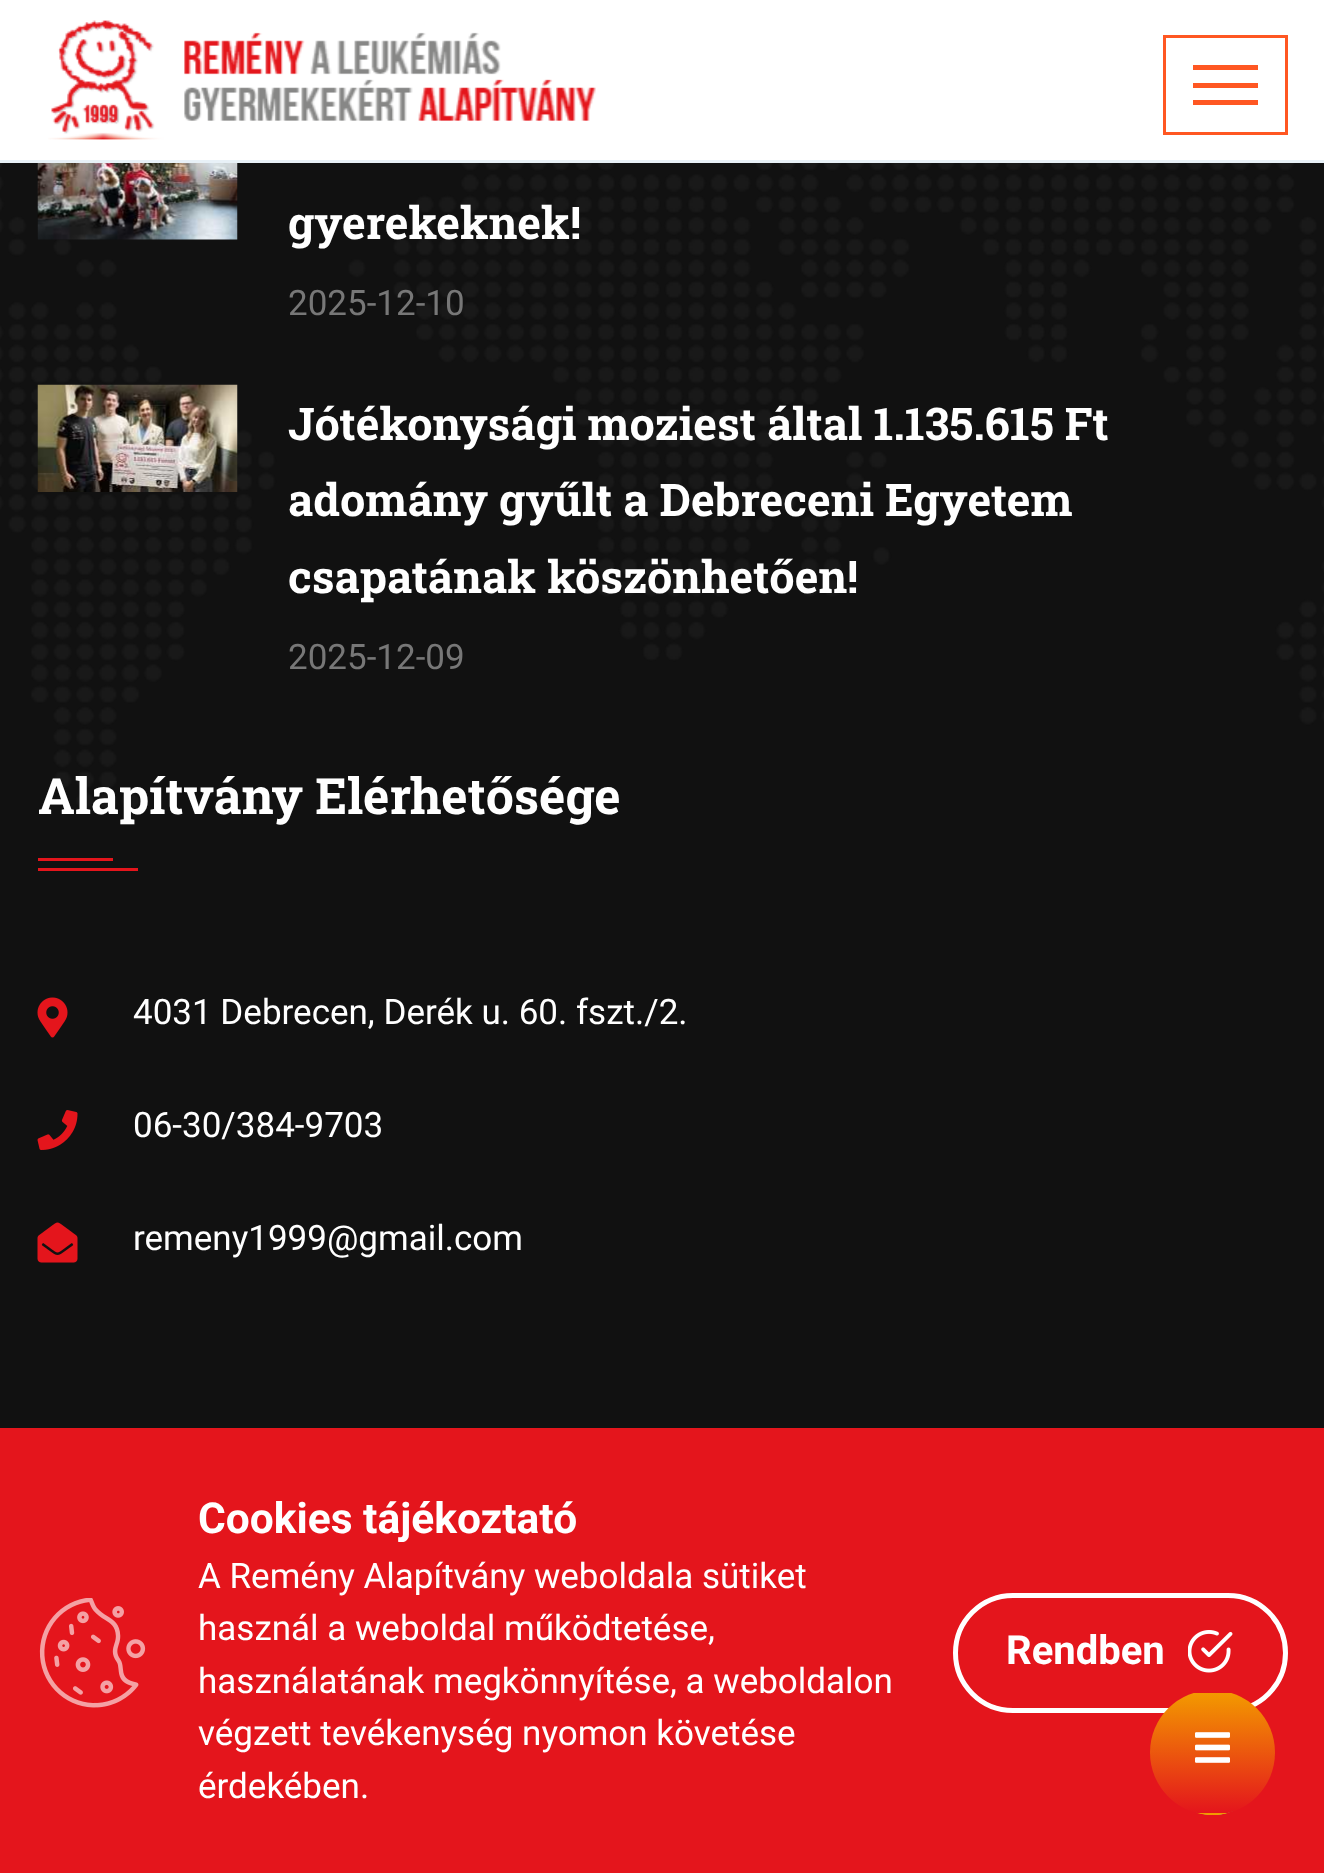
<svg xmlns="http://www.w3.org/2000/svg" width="1324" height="1873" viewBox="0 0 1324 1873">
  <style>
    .t1 { font: bold 45px Roboto Slab; fill: #fff; }
    .t2 { font: 35px Roboto; fill: #777; }
    .t3 { font: bold 50px Roboto Slab; fill: #fff; }
    .t4 { font: 35px Roboto; fill: #fff; }
    .t5 { font: bold 42.5px Roboto; fill: #fff; }
    .t6 { font: bold 40px Roboto; fill: #fff; }
  </style>
  <defs>
    <clipPath id="clip1"><rect x="1150" y="1690" width="125" height="125" rx="62.5"/></clipPath>
    <linearGradient id="g1" gradientUnits="userSpaceOnUse" x1="1213" y1="1693" x2="1213" y2="1573"><stop offset="0" stop-color="#e4151c"/><stop offset="1" stop-color="#f39900"/></linearGradient>
    <linearGradient id="g2" gradientUnits="userSpaceOnUse" x1="1213" y1="1813" x2="1213" y2="1693"><stop offset="0" stop-color="#e4151c"/><stop offset="1" stop-color="#f39900"/></linearGradient>
    <linearGradient id="g3" gradientUnits="userSpaceOnUse" x1="1213" y1="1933" x2="1213" y2="1813"><stop offset="0" stop-color="#e4151c"/><stop offset="1" stop-color="#f39900"/></linearGradient>
  </defs>
  <rect width="100%" height="100%" fill="#111"/>
  <rect x="0" y="0" width="1324" height="160" fill="#fff"/>
  <rect x="0" y="160" width="1324" height="3" fill="#e8f1f7"/>
  <image x="48" y="20" width="548" height="120" href="images/1.png"/>
  <rect x="1164.5" y="36.5" width="122" height="97" fill="none" stroke="#ff5722" stroke-width="3"/>
  <rect x="1193" y="65" width="65" height="5" fill="#ff5722"/>
  <rect x="1193" y="83" width="65" height="5" fill="#ff5722"/>
  <rect x="1193" y="100" width="65" height="5" fill="#ff5722"/>
  <image x="0" y="163" width="1324" height="646" href="images/2.png"/>
  <image x="37" y="163" width="201" height="77" href="images/3.png"/>
  <text x="288" y="239" class="t1">gyerekeknek!</text>
  <text x="288" y="315" class="t2">2025-12-10</text>
  <image x="37" y="384" width="201" height="108" href="images/4.png"/>
  <text x="288" y="440" class="t1">Jótékonysági moziest által 1.135.615 Ft</text>
  <text x="288" y="516" class="t1">adomány gyűlt a Debreceni Egyetem</text>
  <text x="288" y="593" class="t1">csapatának köszönhetően!</text>
  <text x="288" y="669" class="t2">2025-12-09</text>
  <text x="38" y="814" class="t3">Alapítvány Elérhetősége</text>
  <rect x="38" y="858" width="75" height="3" fill="#e4151c"/>
  <rect x="38" y="868" width="100" height="3" fill="#e4151c"/>
  <image x="37" y="997" width="31" height="41" href="images/5.png"/>
  <text x="133" y="1024" class="t4">4031 Debrecen, Derék u. 60. fszt./2.</text>
  <image x="37" y="1110" width="41" height="40" href="images/6.png"/>
  <text x="133" y="1137" class="t4">06-30/384-9703</text>
  <image x="37" y="1222" width="41" height="41" href="images/7.png"/>
  <text x="133" y="1250" class="t4">remeny1999@gmail.com</text>
  <rect x="0" y="1428" width="1324" height="445" fill="#e4151c"/>
  <image x="39" y="1598" width="107" height="110" href="images/8.png"/>
  <text x="198" y="1533" class="t5">Cookies tájékoztató</text>
  <text x="198" y="1588" class="t4">A Remény Alapítvány weboldala sütiket</text>
  <text x="198" y="1640" class="t4">használ a weboldal működtetése,</text>
  <text x="198" y="1693" class="t4">használatának megkönnyítése, a weboldalon</text>
  <text x="198" y="1745" class="t4">végzett tevékenység nyomon követése</text>
  <text x="198" y="1798" class="t4">érdekében.</text>
  <rect x="955.5" y="1595.5" width="330" height="115" rx="57.5" fill="none" stroke="#fff" stroke-width="5"/>
  <text x="1006" y="1664" class="t6">Rendben</text>
  <image x="1188" y="1630" width="45" height="43" href="images/9.png"/>
  <g clip-path="url(#clip1)">
    <rect x="1193" y="1690" width="39" height="3" fill="url(#g1)"/>
  </g>
  <circle cx="1213" cy="1765" r="48.5" fill="none" stroke="#dc3545" stroke-width="3"/>
  <circle cx="1213" cy="1765" r="48.5" fill="none" stroke="#17a2b8" stroke-width="3"/>
  <circle cx="1213" cy="1765" r="48.5" fill="none" stroke="#ffc107" stroke-width="3"/>
  <g clip-path="url(#clip1)">
    <rect x="1150" y="1693" width="125" height="120" fill="url(#g2)"/>
    <rect x="1197" y="1813" width="31" height="2" fill="url(#g3)"/>
  </g>
  <image x="1195" y="1732" width="35" height="31" href="images/10.png"/>
</svg>
